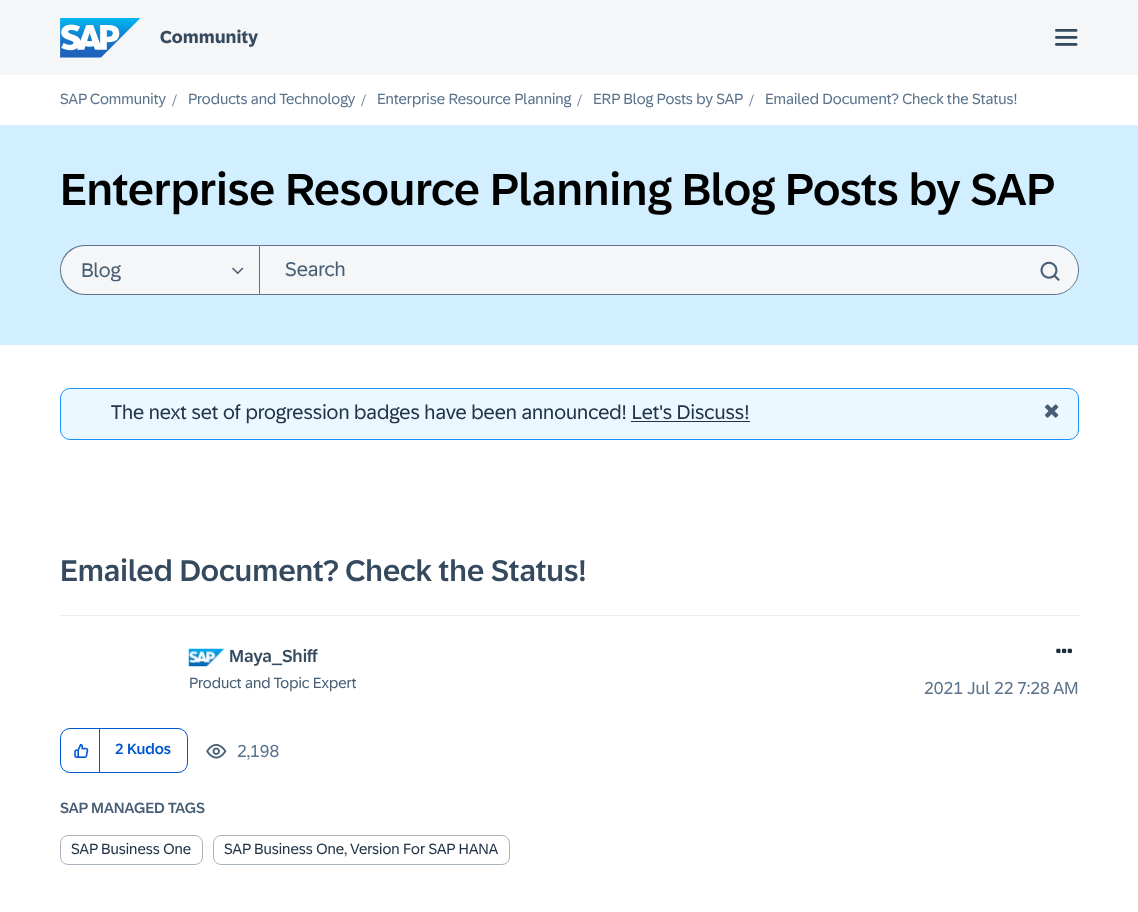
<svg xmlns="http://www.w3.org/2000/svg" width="1138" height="912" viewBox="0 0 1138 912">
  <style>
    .t1 { font: bold 17.5px '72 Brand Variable'; fill: #354a5f; }
    .t2 { font: 15px '72 Brand Variable'; fill: #5b738b; }
    .t3 { font: 17.5px Liberation Serif; fill: #5b738b; }
    .t4 { font: 500 45px '72 Brand Variable'; fill: #000; }
    .t5 { font: 20px '72 Brand Variable'; fill: #475e75; }
    .t6 { font: 20px '72 Brand Variable'; fill: #223548; }
    .t7 { font: 500 30px '72 Brand Variable'; fill: #354a5f; }
    .t8 { font: 500 17.5px '72 Brand Variable'; fill: #354a5f; }
    .t9 { font: 15px '72 Brand Variable'; fill: #475e75; }
    .t10 { font: 17.5px '72 Brand Variable'; fill: #5b738b; }
    .t11 { font: 500 15px '72 Brand Variable'; fill: #0057d2; }
    .t12 { font: 500 15px '72 Brand Variable'; fill: #475e75; }
    .t13 { font: 15px '72 Brand Variable'; fill: #223548; }
  </style>
  <rect width="100%" height="100%" fill="#fff"/>
  <rect x="0" y="0" width="1138" height="75" fill="#f5f6f7"/>
  <image x="60" y="18" width="80" height="40" href="images/1.png"/>
  <text x="160" y="43" class="t1">Community</text>
  <image x="1055" y="29" width="23" height="17" href="images/2.png"/>
  <text x="60" y="104" class="t2">SAP Community</text>
  <text x="172" y="106" class="t3">/</text>
  <text x="188" y="104" class="t2">Products and Technology</text>
  <text x="361" y="106" class="t3">/</text>
  <text x="377" y="104" class="t2">Enterprise Resource Planning</text>
  <text x="577" y="106" class="t3">/</text>
  <text x="593" y="104" class="t2">ERP Blog Posts by SAP</text>
  <text x="749" y="106" class="t3">/</text>
  <text x="765" y="104" class="t2">Emailed Document? Check the Status!</text>
  <rect x="0" y="125" width="1138" height="220" fill="#d1efff"/>
  <text x="60" y="205" class="t4">Enterprise Resource Planning Blog Posts by SAP</text>
  <path d="M85 245H259V295H85C71 295 60 284 60 270C60 256 71 245 85 245Z" fill="#f5f6f7"/>
  <path d="M85 245H259V295H85C71 295 60 284 60 270C60 256 71 245 85 245ZM85 246H259V294H85C72 294 61 283 61 270C61 257 72 246 85 246Z" fill="#5b738b" fill-rule="evenodd"/>
  <text x="81" y="277" class="t5">Blog</text>
  <image x="232" y="267" width="12" height="8" href="images/3.png"/>
  <path d="M259.5 245.5H1054C1067.5 245.5 1078.5 256.5 1078.5 270C1078.5 283.5 1067.5 294.5 1054 294.5H259.5Z" fill="#f5f6f7" stroke="#5b738b"/>
  <text x="285" y="276" class="t5">Search</text>
  <image x="1040" y="261" width="20" height="20" href="images/4.png"/>
  <rect x="60.5" y="388.5" width="1018" height="51" rx="9.5" fill="#ebf8ff" stroke="#1b90ff"/>
  <text x="111" y="419" class="t6">The next set of progression badges have been announced! Let's Discuss!</text>
  <rect x="631" y="421" width="119" height="1" fill="#223548"/>
  <image x="1045" y="404" width="14" height="14" href="images/5.png"/>
  <rect x="60" y="615" width="1019" height="1" fill="#eaecee"/>
  <text x="60" y="581" class="t7">Emailed Document? Check the Status!</text>
  <image x="188" y="648" width="37" height="19" href="images/6.png"/>
  <text x="229" y="662" class="t8">Maya_Shiff</text>
  <text x="189" y="688" class="t9">Product and Topic Expert</text>
  <image x="1056" y="648" width="16" height="6" href="images/7.png"/>
  <text x="924" y="694" class="t10">2021 Jul 22</text>
  <text x="1017" y="694" class="t10">7:28 AM</text>
  <rect x="60.5" y="728.5" width="127" height="44" rx="9.5" fill="none" stroke="#0057d2"/>
  <rect x="99" y="729" width="1" height="44" fill="#0057d2"/>
  <image x="74" y="743" width="15" height="15" href="images/8.png"/>
  <text x="115" y="754" class="t11">2 Kudos</text>
  <image x="206" y="744" width="21" height="15" href="images/9.png"/>
  <text x="237" y="757" class="t10">2,198</text>
  <text x="60" y="813" class="t12">SAP MANAGED TAGS</text>
  <rect x="60.5" y="835.5" width="142" height="29" rx="7.5" fill="none" stroke="#a9b4be"/>
  <text x="71" y="854" class="t13">SAP Business One</text>
  <rect x="213.5" y="835.5" width="296" height="29" rx="7.5" fill="none" stroke="#a9b4be"/>
  <text x="224" y="854" class="t13">SAP Business One, Version For SAP HANA</text>
</svg>
